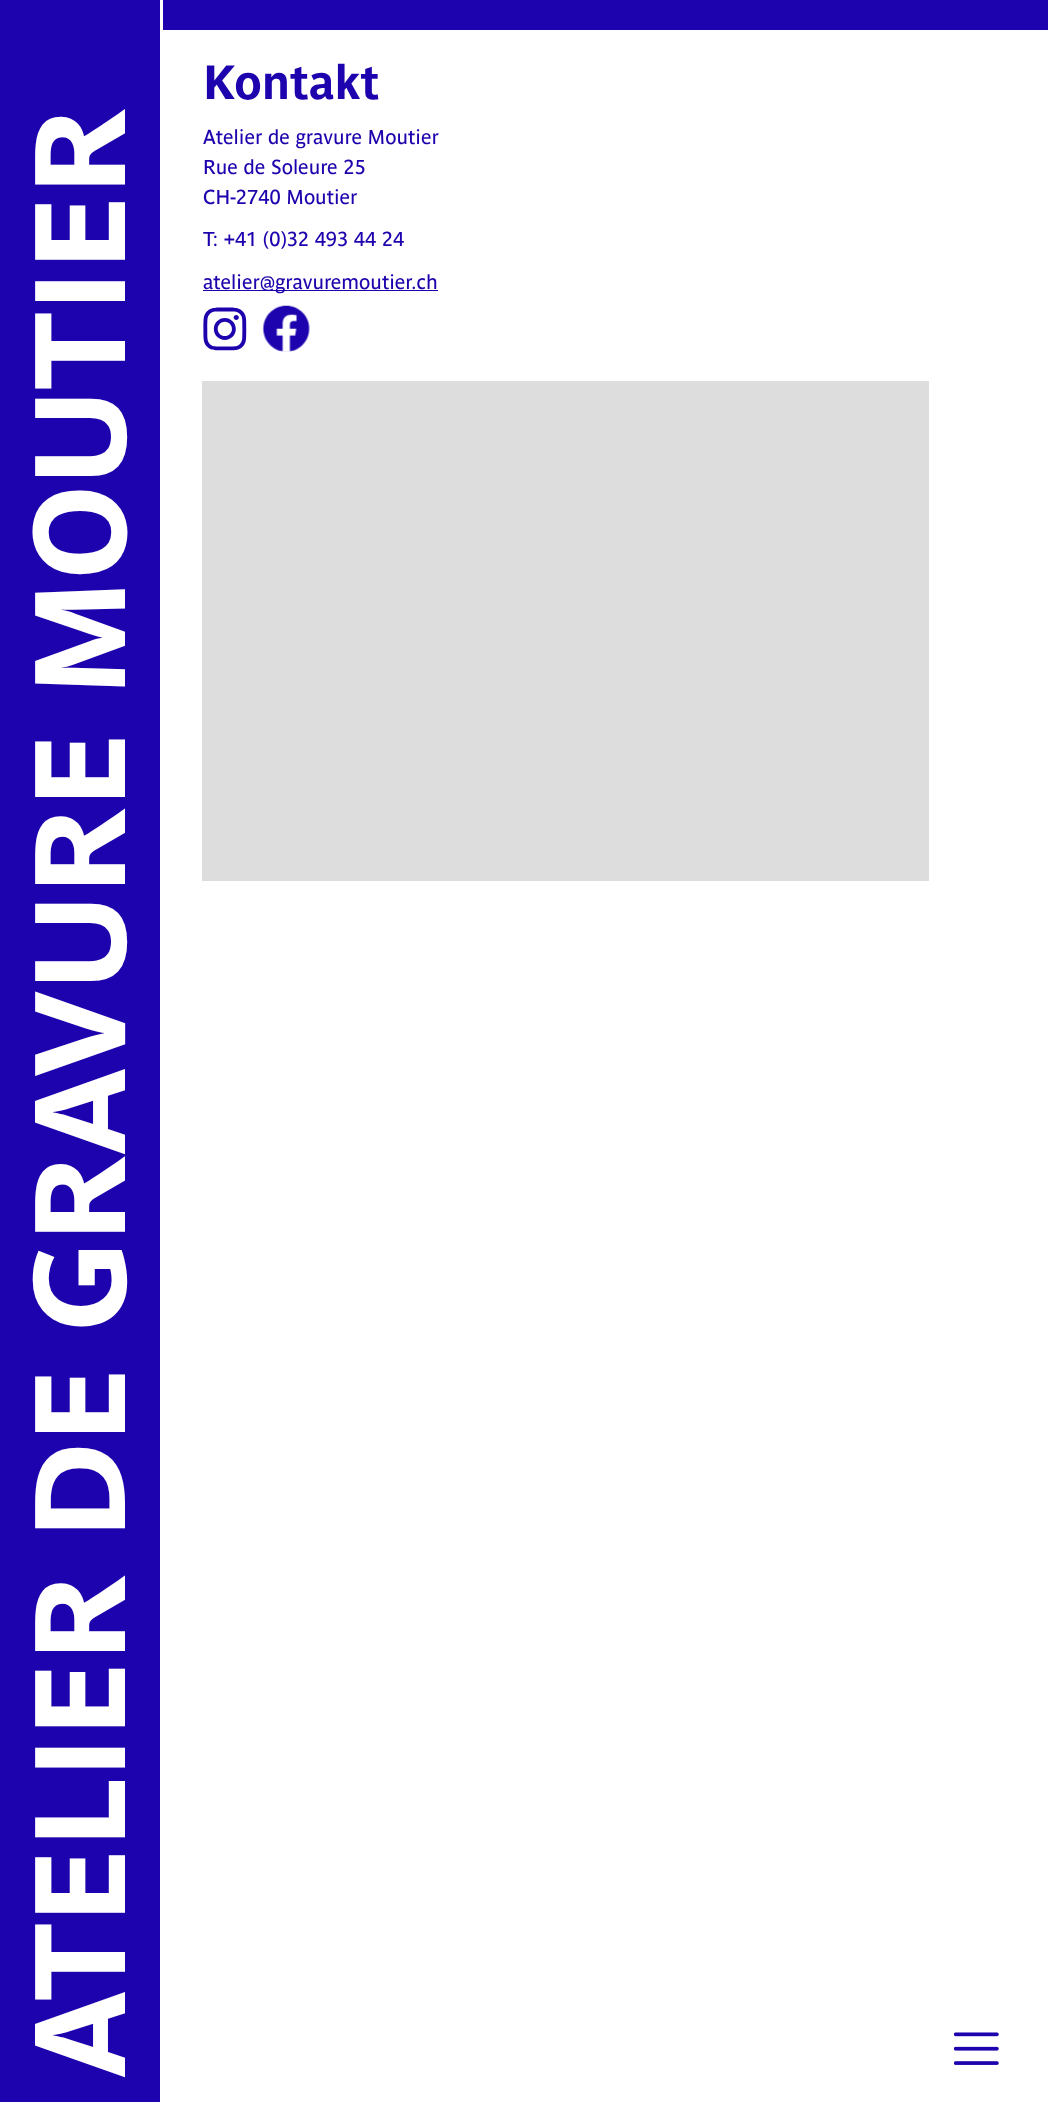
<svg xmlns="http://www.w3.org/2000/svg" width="1048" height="2102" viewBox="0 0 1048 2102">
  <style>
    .t1 { font: bold 127.25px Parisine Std; fill: #fff; }
    .t2 { font: bold 47.5px Parisine Std; fill: #1d03ad; }
    .t3 { font: 20px Parisine Std; fill: #1d03ad; }
  </style>
  <rect width="100%" height="100%" fill="#fff"/>
  <rect x="0" y="0" width="160" height="2102" fill="#1d03ad"/>
  <text x="125" y="2078" transform="rotate(-90 125 2078)" class="t1">ATELIER DE GRAVURE MOUTIER</text>
  <rect x="163" y="0" width="885" height="30" fill="#1d03ad"/>
  <text x="203" y="99" class="t2">Kontakt</text>
  <text x="203" y="144" class="t3">Atelier de gravure Moutier</text>
  <text x="203" y="174" class="t3">Rue de Soleure 25</text>
  <text x="203" y="204" class="t3">CH-2740 Moutier</text>
  <text x="203" y="246" class="t3">T: +41 (0)32 493 44 24</text>
  <rect x="203" y="290" width="235" height="1" fill="#1d03ad"/>
  <text x="203" y="289" class="t3">atelier@gravuremoutier.ch</text>
  <image x="203" y="307" width="44" height="44" href="images/1.png"/>
  <image x="262" y="305" width="48" height="47" href="images/2.png"/>
  <rect x="202" y="381" width="727" height="500" fill="#ddd"/>
  <image x="954" y="2032" width="45" height="33" href="images/3.png"/>
</svg>
